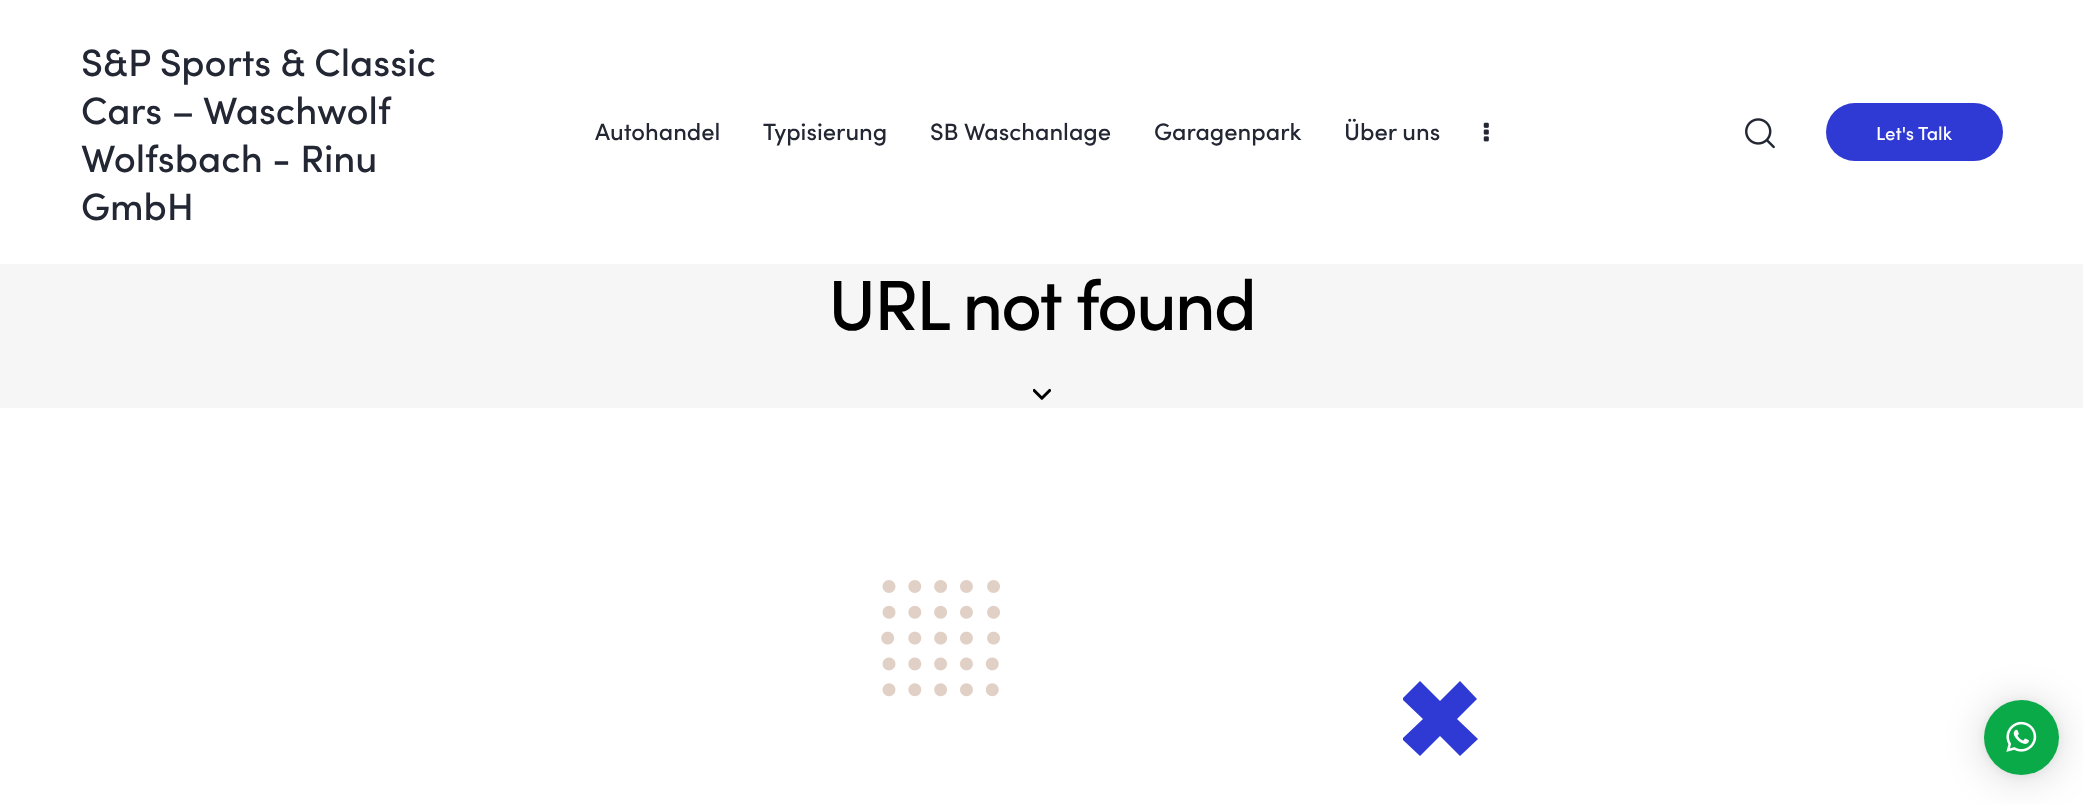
<svg xmlns="http://www.w3.org/2000/svg" width="2083" height="804" viewBox="0 0 2083 804">
  <style>
    .t1 { font: 500 38.25px Sofia; fill: #222733; }
    .t2 { font: 500 23.75px Sofia; fill: #222733; }
    .t3 { font: 500 18.75px Sofia; fill: #fff; }
    .t4 { font: 500 71.25px Sofia; letter-spacing: -2.25px; fill: #000; }
  </style>
  <defs>
    <clipPath id="clip1"><rect x="1403" y="681" width="75" height="75"/></clipPath>
  </defs>
  <rect width="100%" height="100%" fill="#f6f6f6"/>
  <rect x="0" y="0" width="2083" height="264" fill="#fff"/>
  <text x="81" y="76" class="t1">S&amp;P Sports &amp; Classic</text>
  <text x="81" y="124" class="t1">Cars – Waschwolf</text>
  <text x="81" y="172" class="t1">Wolfsbach - Rinu</text>
  <text x="81" y="220" class="t1">GmbH</text>
  <text x="595" y="140" class="t2">Autohandel</text>
  <text x="763" y="140" class="t2">Typisierung</text>
  <text x="930" y="140" class="t2">SB Waschanlage</text>
  <text x="1154" y="140" class="t2">Garagenpark</text>
  <text x="1344" y="140" class="t2">Über uns</text>
  <image x="1483" y="122" width="6" height="20" href="images/1.png"/>
  <image x="1745" y="118" width="30" height="31" href="images/2.png"/>
  <rect x="1826" y="103" width="177" height="58" rx="29" fill="#2f39d3"/>
  <text x="1876" y="140" class="t3">Let's Talk</text>
  <text x="828" y="330" class="t4">URL not found</text>
  <image x="1033" y="388" width="18" height="12" href="images/3.png"/>
  <rect x="0" y="408" width="2083" height="396" fill="#fff"/>
  <image x="881" y="580" width="119" height="117" href="images/4.png"/>
  <g clip-path="url(#clip1)">
    <path d="M1402 739L1423 719L1402 699L1420 681L1440 701L1460 681L1477 699L1457 719L1478 739L1460 756L1440 736L1420 756Z" fill="#2f39d3"/>
  </g>
  <rect x="1984" y="703" width="75" height="75" rx="37.5" fill="#00000029" filter="blur(20px)"/>
  <rect x="1984" y="701" width="75" height="75" rx="37.5" fill="#0000000f" filter="blur(4px)"/>
  <circle cx="2021.5" cy="737.5" r="37.5" fill="#0baa48"/>
  <image x="2006" y="721" width="31" height="31" href="images/5.png"/>
</svg>
